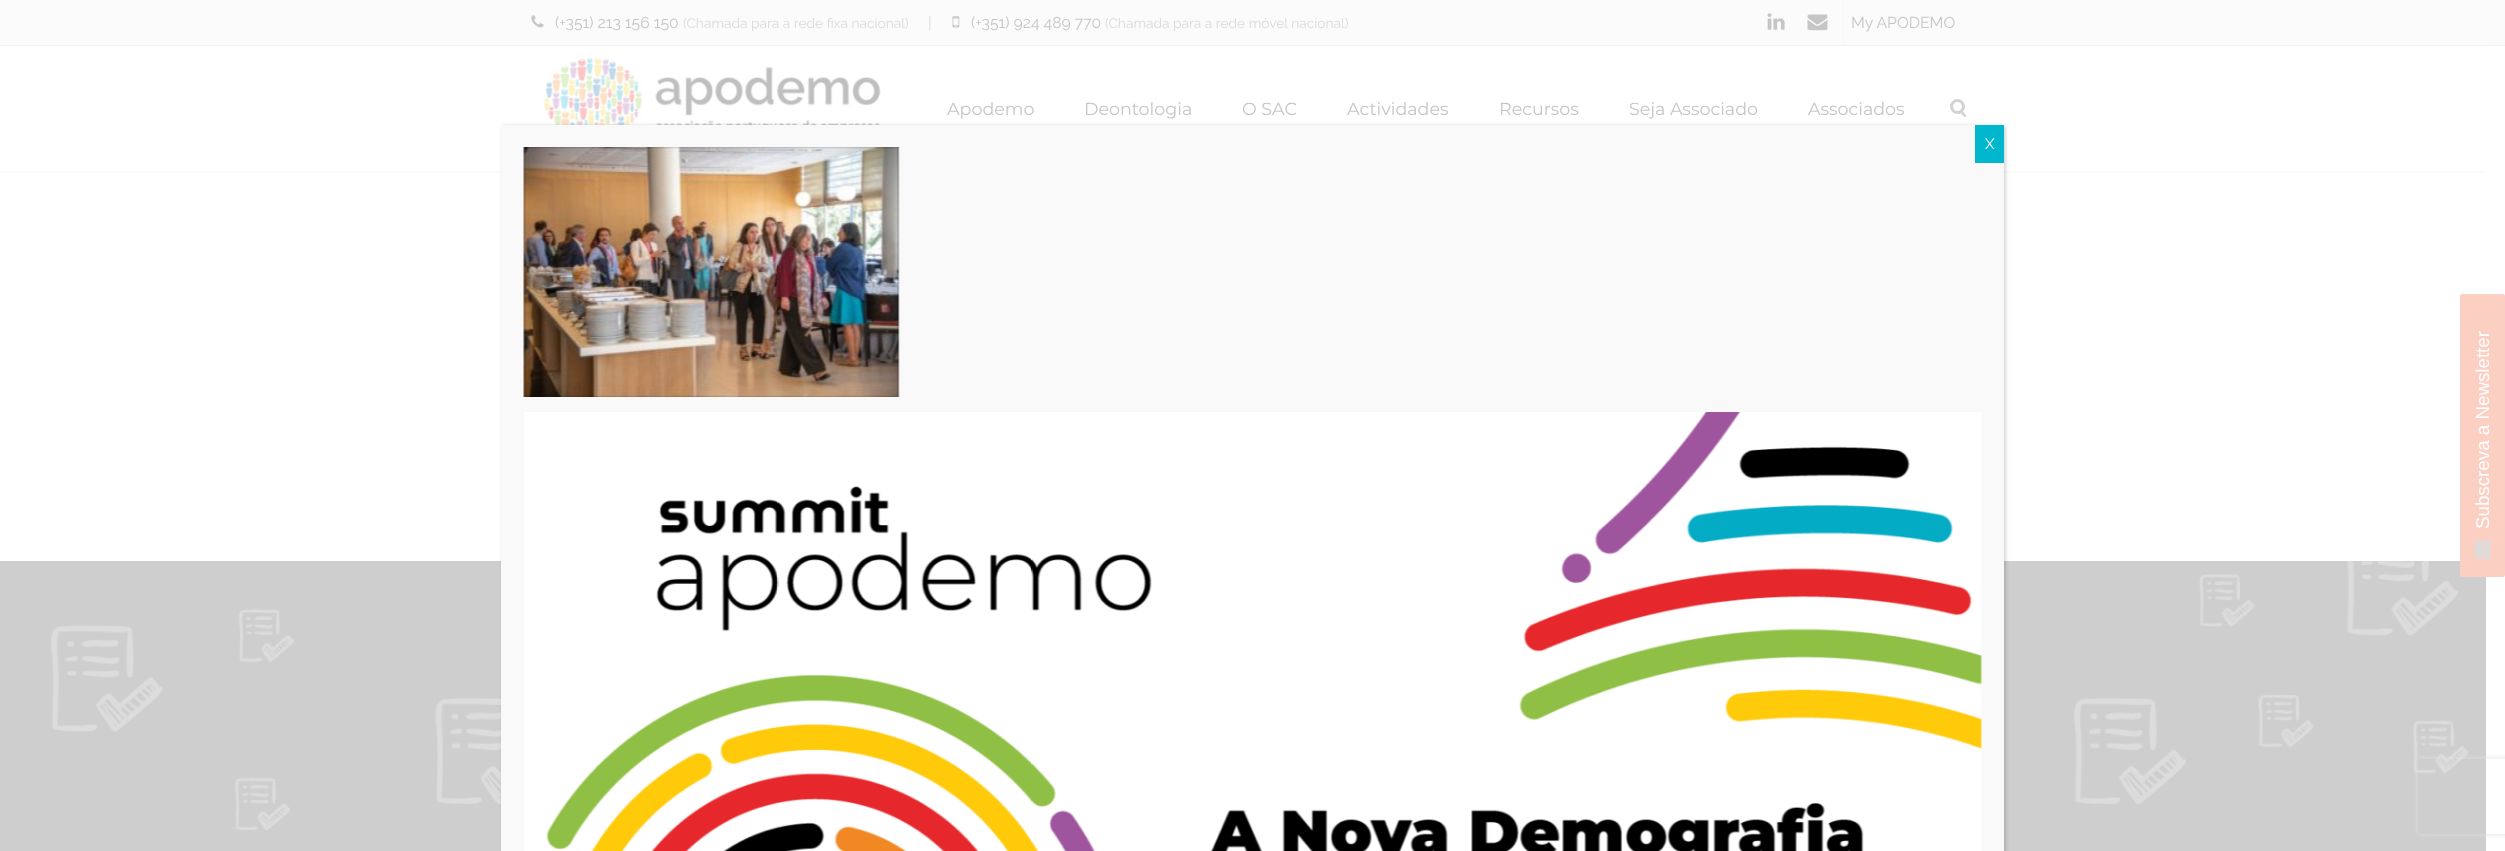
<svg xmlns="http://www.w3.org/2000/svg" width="2505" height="851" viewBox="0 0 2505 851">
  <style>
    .t1 { font: 100 15.75px Raleway; fill: #c6c6c6; }
    .t2 { font: 100 13.75px Raleway; fill: #dadada; }
    .t3 { font: 100 15.75px Raleway; fill: #dadada; }
    .t4 { font: 100 17.5px Montserrat; fill: #c6c6c6; }
    .t5 { font: 100 15px Raleway; fill: #fff; }
    .t6 { font: 18.75px Liberation Sans; fill: #fff; }
  </style>
  <defs>
    <clipPath id="clip1"><path d="M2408 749H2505V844H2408ZM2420.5 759H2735.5C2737 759 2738 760 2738 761.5V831.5C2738 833 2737 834 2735.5 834H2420.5C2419 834 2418 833 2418 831.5V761.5C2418 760 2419 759 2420.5 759Z" clip-rule="evenodd"/></clipPath>
  </defs>
  <rect width="100%" height="100%" fill="#fff"/>
  <rect x="0" y="0" width="2505" height="45" fill="#fbfbfb"/>
  <rect x="2486" y="45" width="19" height="1" fill="#f5f5f5"/>
  <image x="531" y="15" width="13" height="13" href="images/1.png"/>
  <text x="555" y="28" class="t1">(+351) 213 156 150</text>
  <text x="683" y="28" class="t2">(Chamada para a rede fixa nacional)</text>
  <text x="928" y="28" class="t3">|</text>
  <image x="952" y="16" width="8" height="12" href="images/2.png"/>
  <text x="971" y="28" class="t1">(+351) 924 489 770</text>
  <text x="1105" y="28" class="t2">(Chamada para a rede móvel nacional)</text>
  <image x="1767" y="13" width="18" height="17" href="images/3.png"/>
  <image x="1807" y="14" width="21" height="17" href="images/4.png"/>
  <rect x="1843" y="0" width="1" height="45" fill="#f7f7f7"/>
  <text x="1851" y="28" class="t1">My APODEMO</text>
  <rect x="0" y="45" width="2486" height="1" fill="#f2f2f2"/>
  <rect x="0" y="171" width="2486" height="2" fill="#fbfbfb"/>
  <image x="539" y="52" width="342" height="73" href="images/5.png"/>
  <text x="947" y="115" class="t4">Apodemo</text>
  <text x="1084" y="115" class="t4">Deontologia</text>
  <text x="1242" y="115" class="t4">O SAC</text>
  <text x="1347" y="115" class="t4">Actividades</text>
  <text x="1499" y="115" class="t4">Recursos</text>
  <text x="1629" y="115" class="t4">Seja Associado</text>
  <text x="1808" y="115" class="t4">Associados</text>
  <circle cx="1957.5" cy="106.5" r="6" fill="none" stroke="#d2d2d2" stroke-width="3"/>
  <path d="M1959.5 112L1961.5 110L1966.5 115.5L1965 117.5Z" fill="#d2d2d2"/>
  <rect x="0" y="561" width="2486" height="290" fill="#cecece"/>
  <image x="0" y="561" width="2469" height="270" href="images/9.png"/>
  <rect x="503" y="126" width="1502" height="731" fill="#0202023b" filter="blur(2px)"/>
  <rect x="501" y="125" width="1503" height="726" fill="#f9f9f9"/>
  <rect x="1975" y="125" width="29" height="38" fill="#00b7cd"/>
  <text x="1985" y="149" class="t5">X</text>
  <image x="523" y="147" width="377" height="250" href="images/6.png"/>
  <image x="524" y="412" width="1458" height="439" href="images/7.png"/>
  <path d="M2460 575V296C2460 295 2461 294 2462 294H2503C2504 294 2505 295 2505 296V575C2505 576 2504 577 2503 577H2462C2461 577 2460 576 2460 575Z" fill="#fbd0c3"/>
  <text x="2489" y="529" transform="rotate(-90 2489 529)" class="t6">Subscreva a Newsletter</text>
  <image x="2475" y="540" width="15" height="19" href="images/8.png"/>
  <g clip-path="url(#clip1)">
    <rect x="2418" y="759" width="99" height="75" rx="2.5" fill="#dfdfdf" filter="blur(3px)"/>
  </g>
</svg>
